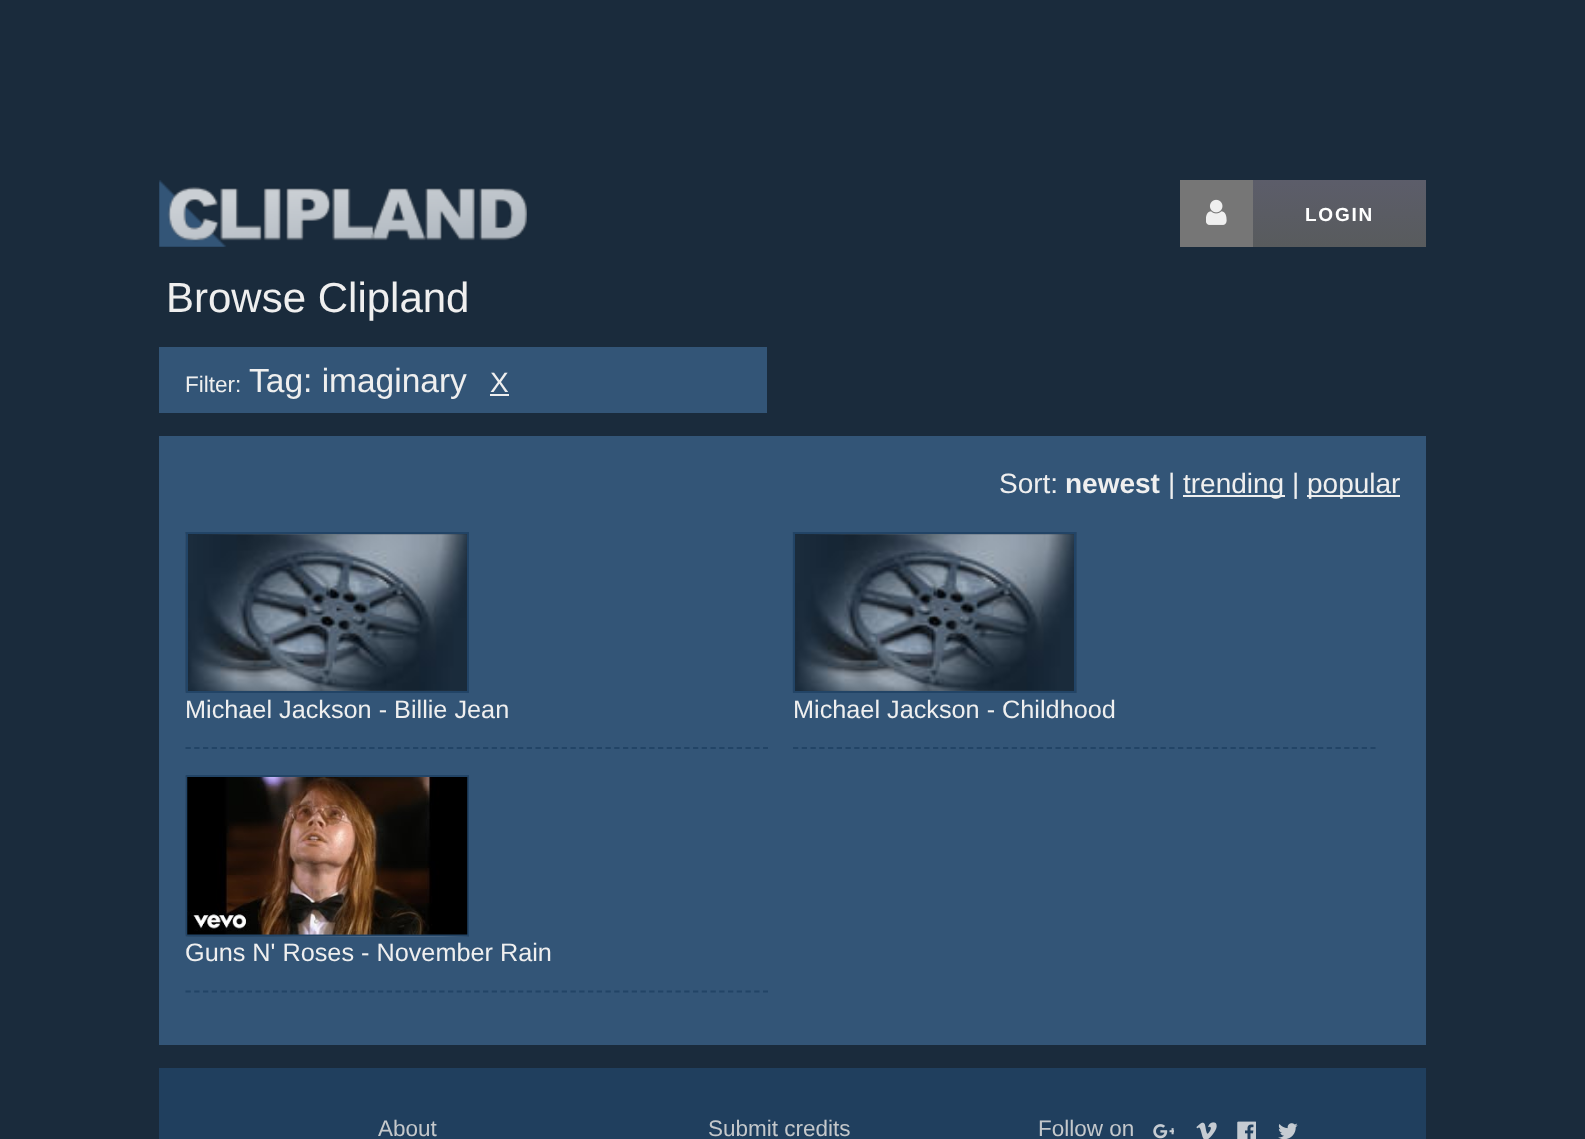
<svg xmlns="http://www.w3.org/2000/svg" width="1585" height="1139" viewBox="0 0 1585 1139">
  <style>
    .t1 { font: bold 19px Liberation Sans; letter-spacing: 1.75px; fill: #fff; }
    .t2 { font: 42px Liberation Sans; fill: #efefef; }
    .t3 { font: 22.5px Liberation Sans; fill: #efefef; }
    .t4 { font: 33.5px Liberation Sans; fill: #efefef; }
    .t5 { font: 28px Liberation Sans; fill: #efefef; }
    .t6 { font: bold 28px Liberation Sans; fill: #efefef; }
    .t7 { font: 25.25px Liberation Sans; fill: #efefef; }
    .t8 { font: 22.5px Liberation Sans; fill: #c4c8cb; }
  </style>
  <defs>
    <linearGradient id="g1" gradientUnits="userSpaceOnUse" x1="1340" y1="180" x2="1340" y2="247"><stop offset="0" stop-color="#5c5d6a"/><stop offset="1" stop-color="#585b5d"/></linearGradient>
  </defs>
  <rect width="100%" height="100%" fill="#1a2b3c"/>
  <image x="159" y="180" width="368" height="67" href="images/1.png"/>
  <rect x="1180" y="180" width="73" height="67" fill="#767676"/>
  <image x="1206" y="199" width="21" height="26" href="images/2.png"/>
  <rect x="1253" y="180" width="173" height="67" fill="url(#g1)"/>
  <text x="1305" y="221" class="t1">LOGIN</text>
  <text x="166" y="312" class="t2">Browse Clipland</text>
  <rect x="159" y="347" width="608" height="66" fill="#357"/>
  <text x="185" y="392" class="t3">Filter:</text>
  <text x="249" y="392" class="t4">Tag: imaginary</text>
  <text x="490" y="392" class="t5">X</text>
  <rect x="490" y="394" width="19" height="2" fill="#efefef"/>
  <rect x="159" y="436" width="1267" height="609" fill="#357"/>
  <text x="999" y="493" class="t5">Sort:</text>
  <text x="1065" y="493" class="t6">newest</text>
  <text x="1168" y="493" class="t5">|</text>
  <rect x="1183" y="495" width="102" height="2" fill="#efefef"/>
  <text x="1183" y="493" class="t5">trending |</text>
  <rect x="1307" y="495" width="93" height="2" fill="#efefef"/>
  <text x="1307" y="493" class="t5">popular</text>
  <path d="M185.5 748H768" fill="none" stroke="#246" stroke-width="1.8" stroke-dasharray="5.25 3.5"/>
  <image x="185" y="532" width="282" height="161" href="images/3.png"/>
  <rect x="187" y="533" width="281" height="159" fill="none" stroke="#246" stroke-width="2"/>
  <text x="185" y="718" class="t7">Michael Jackson - Billie Jean</text>
  <path d="M793 748H1375.5" fill="none" stroke="#246" stroke-width="1.8" stroke-dasharray="5.25 3.5"/>
  <image x="792" y="532" width="285" height="161" href="images/4.png"/>
  <rect x="794" y="533" width="281" height="159" fill="none" stroke="#246" stroke-width="2"/>
  <text x="793" y="718" class="t7">Michael Jackson - Childhood</text>
  <path d="M185.5 991.5H768" fill="none" stroke="#246" stroke-width="1.8" stroke-dasharray="5.25 3.5"/>
  <image x="185" y="775" width="284" height="162" href="images/5.png"/>
  <rect x="187" y="776" width="281" height="159" fill="none" stroke="#246" stroke-width="2"/>
  <image x="187" y="777" width="281" height="158" href="images/6.png"/>
  <text x="185" y="961" class="t7">Guns N' Roses - November Rain</text>
  <rect x="159" y="1068" width="1267" height="71" fill="#203f5e"/>
  <text x="378" y="1136" class="t8">About</text>
  <text x="708" y="1136" class="t8">Submit credits</text>
  <text x="1038" y="1136" class="t8">Follow on</text>
  <image x="1153" y="1124" width="21" height="15" href="images/7.png"/>
  <image x="1196" y="1122" width="21" height="17" href="images/8.png"/>
  <image x="1237" y="1121" width="19" height="18" href="images/9.png"/>
  <image x="1278" y="1123" width="20" height="16" href="images/10.png"/>
</svg>
